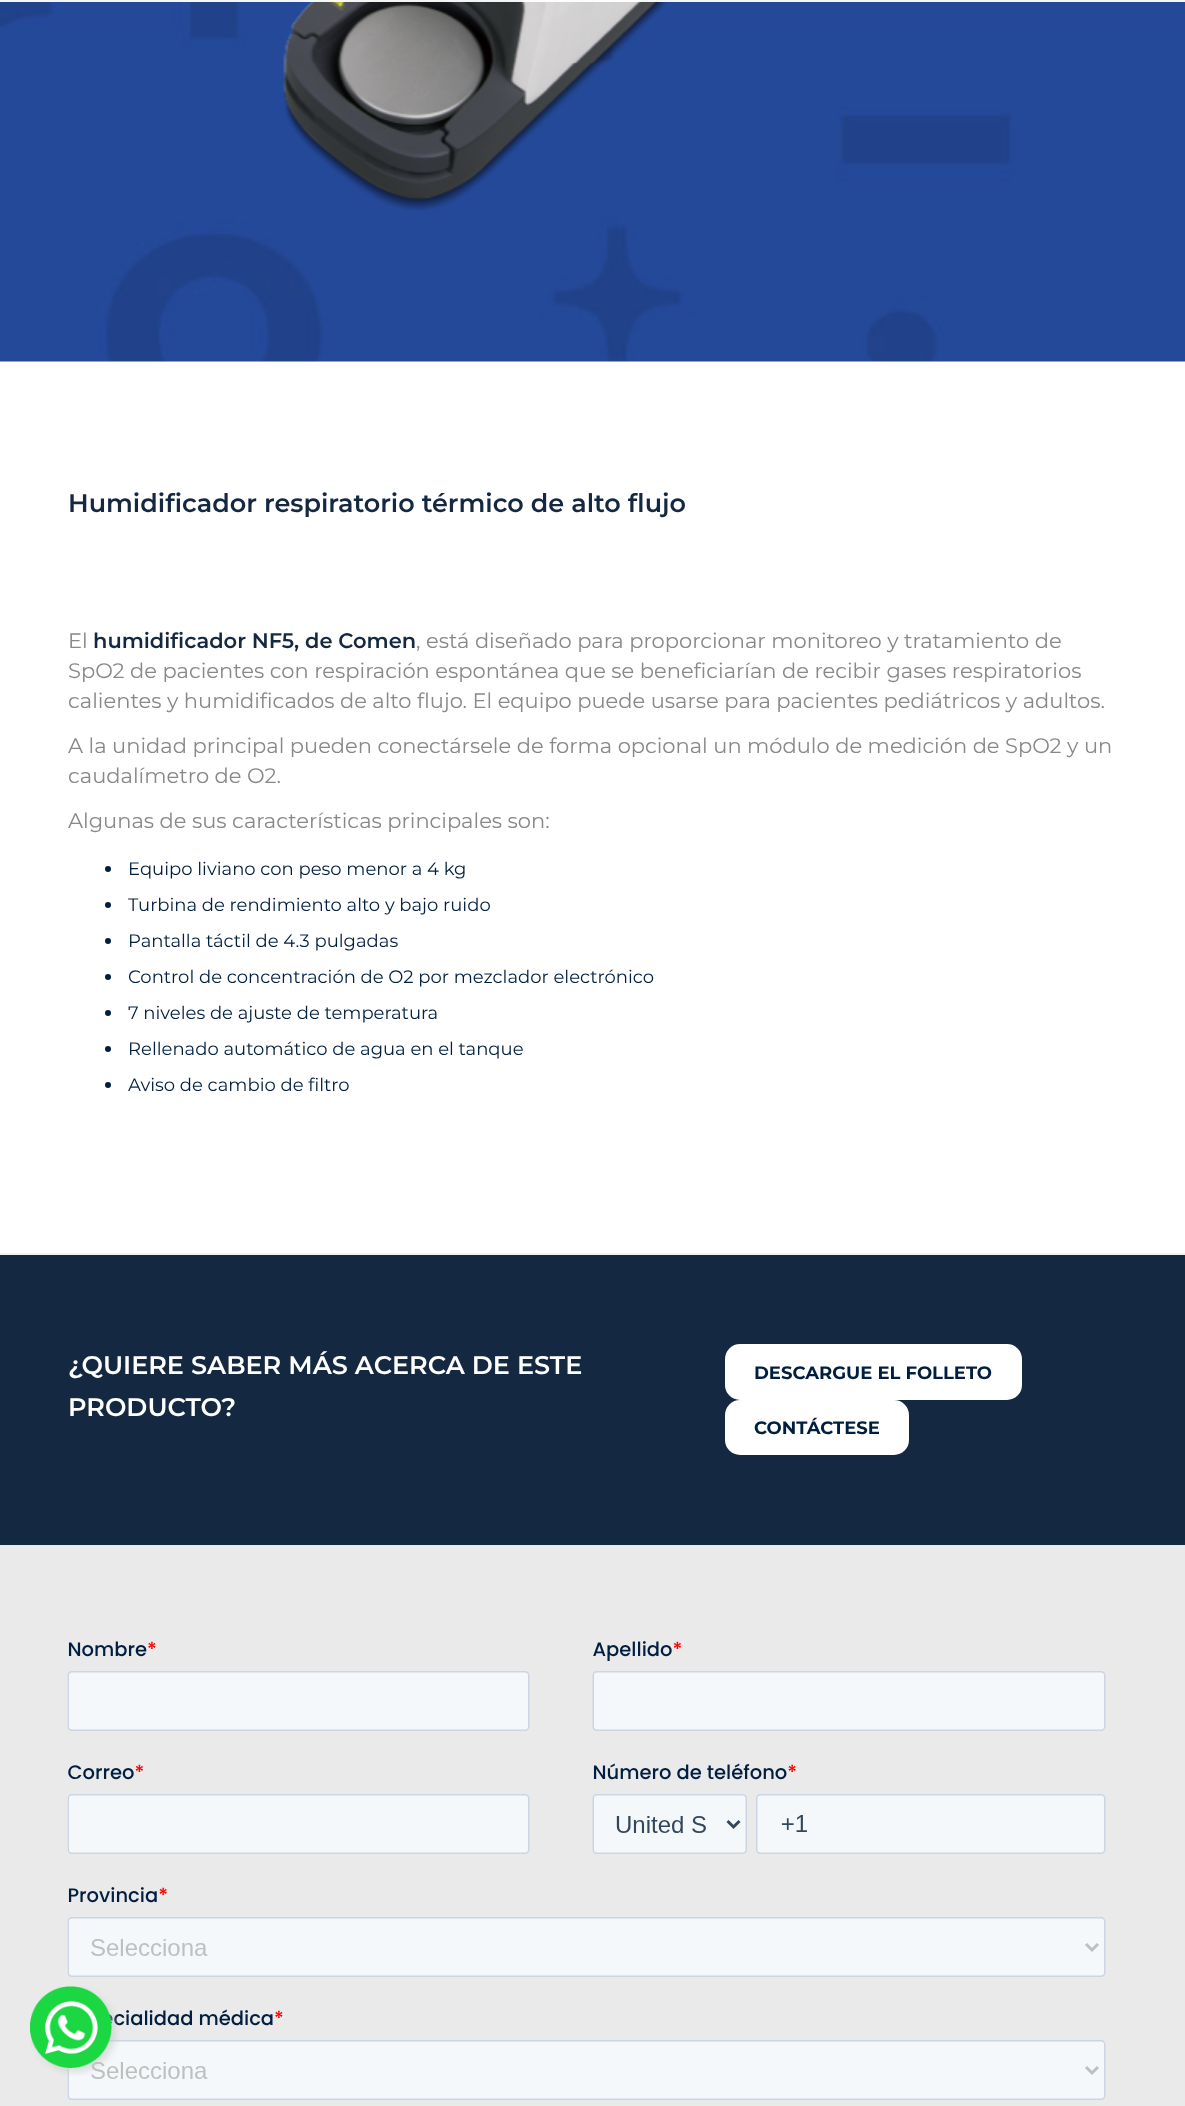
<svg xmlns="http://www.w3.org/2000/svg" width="1185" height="2106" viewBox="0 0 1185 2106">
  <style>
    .t1 { font: 600 25.5px Montserrat; fill: #142841; }
    .t2 { font: 21px Montserrat; fill: #888; }
    .t3 { font: 600 21px Montserrat; fill: #142841; }
    .t4 { font: 18px Montserrat; fill: #001e3f; }
    .t5 { font: 600 25.5px Montserrat; fill: #fff; }
    .t6 { font: bold 18px Montserrat; fill: #001e3f; }
  </style>
  <rect width="100%" height="100%" fill="#fff"/>
  <image x="0" y="0" width="1185" height="362" href="images/1.png"/>
  <image x="283" y="0" width="385" height="211" href="images/2.png"/>
  <rect x="0" y="0" width="1185" height="2" fill="#fffffff2"/>
  <text x="68" y="512" class="t1">Humidificador respiratorio térmico de alto flujo</text>
  <text x="68" y="648" class="t2">El</text>
  <text x="93" y="648" class="t3">humidificador NF5, de Comen</text>
  <text x="416" y="648" class="t2">, está diseñado para proporcionar monitoreo y tratamiento de</text>
  <text x="68" y="678" class="t2">SpO2 de pacientes con respiración espontánea que se beneficiarían de recibir gases respiratorios</text>
  <text x="68" y="708" class="t2">calientes y humidificados de alto flujo. El equipo puede usarse para pacientes pediátricos y adultos.</text>
  <text x="68" y="753" class="t2">A la unidad principal pueden conectársele de forma opcional un módulo de medición de SpO2 y un</text>
  <text x="68" y="783" class="t2">caudalímetro de O2.</text>
  <text x="68" y="828" class="t2">Algunas de sus características principales son:</text>
  <circle cx="108" cy="869" r="3" fill="#001e3f"/>
  <text x="128" y="875" class="t4">Equipo liviano con peso menor a 4 kg</text>
  <circle cx="108" cy="905" r="3" fill="#001e3f"/>
  <text x="128" y="911" class="t4">Turbina de rendimiento alto y bajo ruido</text>
  <circle cx="108" cy="941" r="3" fill="#001e3f"/>
  <text x="128" y="947" class="t4">Pantalla táctil de 4.3 pulgadas</text>
  <circle cx="108" cy="977" r="3" fill="#001e3f"/>
  <text x="128" y="983" class="t4">Control de concentración de O2 por mezclador electrónico</text>
  <circle cx="108" cy="1013" r="3" fill="#001e3f"/>
  <text x="128" y="1019" class="t4">7 niveles de ajuste de temperatura</text>
  <circle cx="108" cy="1049" r="3" fill="#001e3f"/>
  <text x="128" y="1055" class="t4">Rellenado automático de agua en el tanque</text>
  <circle cx="108" cy="1085" r="3" fill="#001e3f"/>
  <text x="128" y="1091" class="t4">Aviso de cambio de filtro</text>
  <rect x="0" y="1253" width="1185" height="2" fill="#f1f1f1"/>
  <rect x="0" y="1255" width="1185" height="290" fill="#142841"/>
  <text x="68" y="1374" class="t5">¿QUIERE SABER MÁS ACERCA DE ESTE</text>
  <text x="68" y="1416" class="t5">PRODUCTO?</text>
  <rect x="725" y="1344" width="297" height="56" rx="15" fill="#fff"/>
  <text x="754" y="1379" class="t6">DESCARGUE EL FOLLETO</text>
  <rect x="725" y="1400" width="184" height="55" rx="15" fill="#fff"/>
  <text x="754" y="1434" class="t6">CONTÁCTESE</text>
  <rect x="0" y="1545" width="1185" height="561" fill="#eaeaea"/>
  <image x="67" y="1641" width="1039" height="459" href="images/3.png"/>
  <image x="30" y="1986" width="90" height="90" href="images/4.png"/>
</svg>
